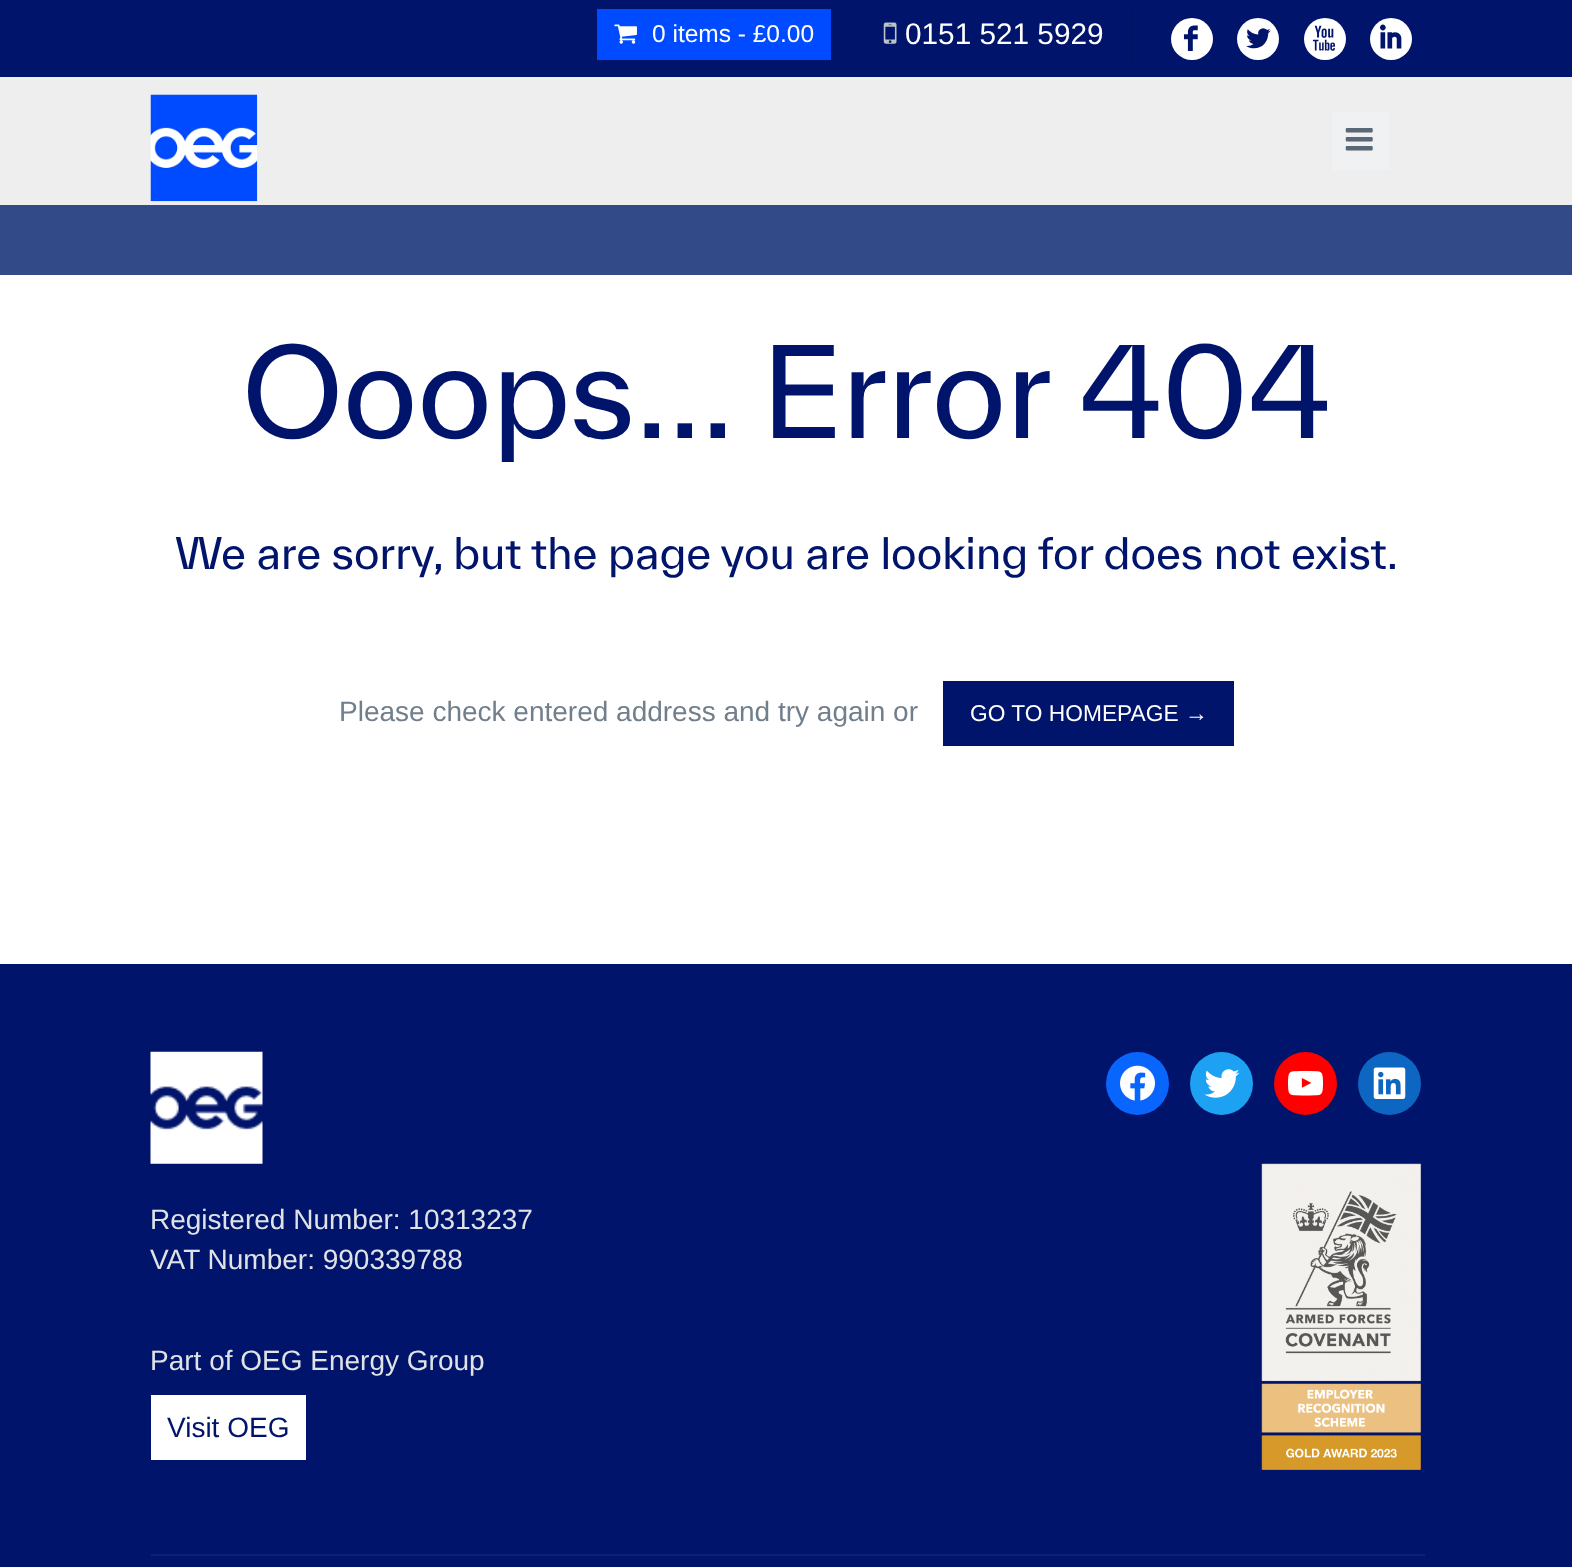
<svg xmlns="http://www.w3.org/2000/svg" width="1572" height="1567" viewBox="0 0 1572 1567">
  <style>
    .t1 { font: 24.5px Liberation Sans; fill: #fff; }
    .t2 { font: 29.75px Liberation Sans; fill: #fff; }
    .t3 { font: 42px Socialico; fill: #00146b; }
    .t4 { font: 122.5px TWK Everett; fill: #00146b; }
    .t5 { font: 42px TWK Everett; fill: #00146b; }
    .t6 { font: 28px Liberation Sans; fill: #717e8c; }
    .t7 { font: 22.75px Liberation Sans; fill: #fff; }
    .t8 { font: 28px Liberation Sans; fill: #dfe3e5; }
    .t9 { font: 28px Liberation Sans; fill: #00146b; }
  </style>
  <rect width="100%" height="100%" fill="#fff"/>
  <rect x="0" y="0" width="1572" height="77" fill="#00146b"/>
  <rect x="597" y="9" width="234" height="51" fill="#004bff"/>
  <image x="614" y="24" width="23" height="20" href="images/1.png"/>
  <text x="652" y="42" class="t1">0 items - £0.00</text>
  <rect x="1131" y="9" width="2" height="52" fill="#001260"/>
  <image x="883" y="22" width="14" height="22" href="images/2.png"/>
  <text x="905" y="44" class="t2">0151 521 5929</text>
  <circle cx="1192" cy="39" r="21" fill="#fff"/>
  <text x="1182" y="53" class="t3">F</text>
  <circle cx="1258" cy="39" r="21" fill="#fff"/>
  <text x="1241" y="53" class="t3">L</text>
  <circle cx="1325" cy="39" r="21" fill="#fff"/>
  <text x="1311" y="53" class="t3">X</text>
  <circle cx="1391" cy="39" r="21" fill="#fff"/>
  <text x="1378" y="53" class="t3">I</text>
  <rect x="0" y="77" width="1572" height="128" fill="#eee"/>
  <image x="150" y="94" width="108" height="108" href="images/3.png"/>
  <rect x="1332" y="112" width="58" height="58" fill="#eff1f2"/>
  <image x="1345" y="128" width="28" height="23" href="images/4.png"/>
  <rect x="0" y="205" width="1572" height="70" fill="#334a89"/>
  <text x="242" y="438" class="t4">Ooops... Error 404</text>
  <text x="175" y="569" class="t5">We are sorry, but the page you are looking for does not exist.</text>
  <text x="339" y="721" class="t6">Please check entered address and try again or</text>
  <rect x="943" y="681" width="291" height="65" fill="#00146b"/>
  <text x="970" y="721" class="t7">GO TO HOMEPAGE →</text>
  <rect x="0" y="964" width="1572" height="603" fill="#00146b"/>
  <image x="150" y="1051" width="113" height="113" href="images/5.png"/>
  <text x="150" y="1229" class="t8">Registered Number: 10313237</text>
  <text x="150" y="1269" class="t8">VAT Number: 990339788</text>
  <text x="150" y="1370" class="t8">Part of OEG Energy Group</text>
  <rect x="151" y="1395" width="155" height="65" fill="#fff"/>
  <text x="167" y="1437" class="t9">Visit OEG</text>
  <circle cx="1137.5" cy="1083.5" r="31.5" fill="#0866ff"/>
  <image x="1120" y="1065" width="35" height="36" href="images/6.png"/>
  <circle cx="1221.5" cy="1083.5" r="31.5" fill="#1da1f2"/>
  <image x="1204" y="1069" width="36" height="29" href="images/7.png"/>
  <circle cx="1305.5" cy="1083.5" r="31.5" fill="#f00"/>
  <image x="1288" y="1070" width="35" height="26" href="images/8.png"/>
  <circle cx="1389.5" cy="1083.5" r="31.5" fill="#0d66c2"/>
  <image x="1373" y="1067" width="33" height="32" href="images/9.png"/>
  <image x="1261" y="1163" width="160" height="307" href="images/10.png"/>
  <rect x="151" y="1554" width="1274" height="2" fill="#0d2072"/>
</svg>
